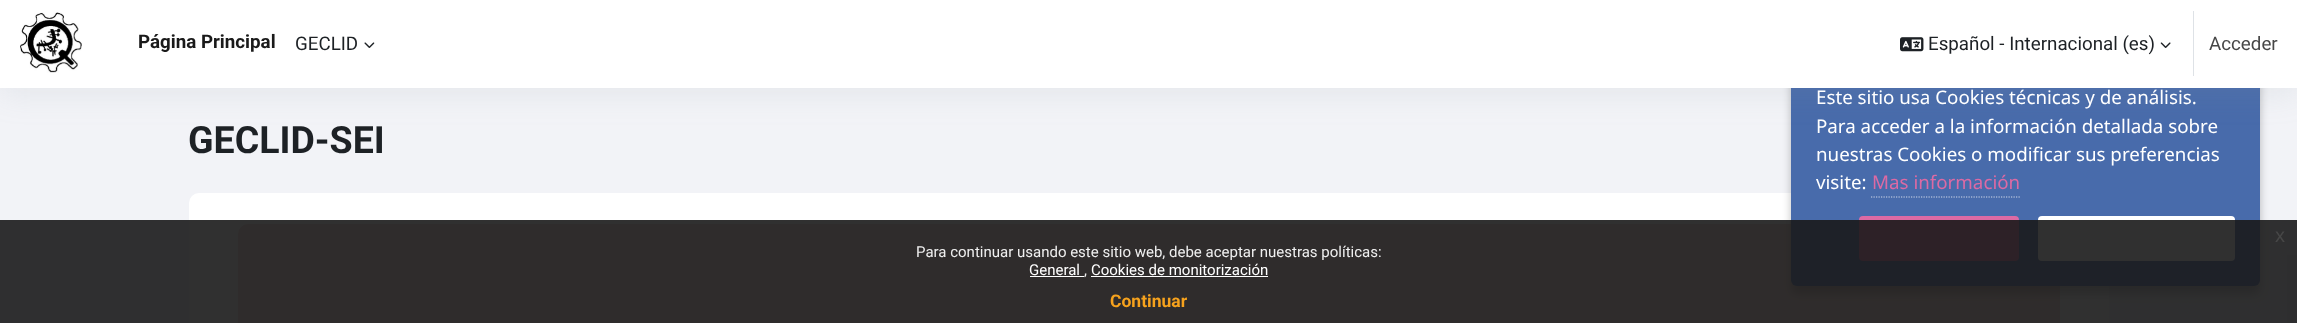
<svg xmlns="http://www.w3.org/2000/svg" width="2297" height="323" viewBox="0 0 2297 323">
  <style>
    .t1 { font: bold 18.75px Roboto; fill: #1a1a1a; }
    .t2 { font: 18.75px Roboto; fill: #1d2125; }
    .t3 { font: 18.75px Roboto; fill: #474747; }
    .t4 { font: bold 37.5px Roboto; fill: #1d2125; }
    .t5 { font: 20px Liberation Sans; fill: #474747; }
    .t6 { font: 15px Roboto; fill: #efefef; }
    .t7 { font: 15px Roboto; fill: #fff; }
    .t8 { font: bold 17.5px Roboto; fill: #f6a21d; }
    .t9 { font: 18.75px Noto Sans; fill: #fff; }
    .t10 { font: 18.75px Noto Sans; fill: #dc6aa4; }
  </style>
  <rect width="100%" height="100%" fill="#f2f3f7"/>
  <rect x="189" y="193" width="1920" height="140" rx="10" fill="#fff"/>
  <rect x="238" y="224" width="1822" height="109" rx="10" fill="#f4d6d2"/>
  <rect x="1791" y="26" width="469" height="268" rx="6" fill="#00000040" filter="blur(4px)"/>
  <rect x="1791" y="19" width="469" height="267" rx="6" fill="#486bab"/>
  <rect x="0" y="8" width="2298" height="87" fill="#8c98a421" filter="blur(15px)"/>
  <rect x="0" y="0" width="2297" height="88" fill="#fff"/>
  <image x="20" y="12" width="62" height="61" href="images/1.png"/>
  <text x="138" y="48" class="t1">Página Principal</text>
  <text x="295" y="50" class="t2">GECLID</text>
  <image x="364" y="42" width="11" height="6" href="images/2.png"/>
  <image x="1900" y="37" width="24" height="15" href="images/3.png"/>
  <text x="1928" y="50" class="t2">Español - Internacional (es)</text>
  <image x="2160" y="42" width="11" height="6" href="images/4.png"/>
  <rect x="2193" y="11" width="1" height="65" fill="#dee2e6"/>
  <text x="2209" y="50" class="t3">Acceder</text>
  <text x="188" y="153" class="t4">GECLID-SEI</text>
  <rect x="1859" y="216" width="160" height="45" rx="4" fill="#dc6aa4"/>
  <rect x="2038" y="216" width="197" height="45" rx="4" fill="#fff"/>
  <rect x="0" y="220" width="2297" height="103" fill="#191919e6"/>
  <text x="2275" y="242" class="t5">x</text>
  <text x="916" y="257" class="t6">Para continuar usando este sitio web, debe aceptar nuestras políticas:</text>
  <text x="1029" y="275" class="t7">General</text>
  <rect x="1030" y="276" width="54" height="1" fill="#fff"/>
  <text x="1084" y="275" class="t6">,</text>
  <rect x="1091" y="276" width="177" height="1" fill="#fff"/>
  <text x="1091" y="275" class="t7">Cookies de monitorización</text>
  <text x="1110" y="307" class="t8">Continuar</text>
  <text x="1816" y="104" class="t9">Este sitio usa Cookies técnicas y de análisis.</text>
  <text x="1816" y="133" class="t9">Para acceder a la información detallada sobre</text>
  <text x="1816" y="161" class="t9">nuestras Cookies o modificar sus preferencias</text>
  <text x="1816" y="189" class="t9">visite:</text>
  <text x="1872" y="189" class="t10">Mas información</text>
  <path d="M1871 197H2020" fill="none" stroke="#d1daea" stroke-width="1.2" stroke-dasharray="1.25 1.25"/>
</svg>
